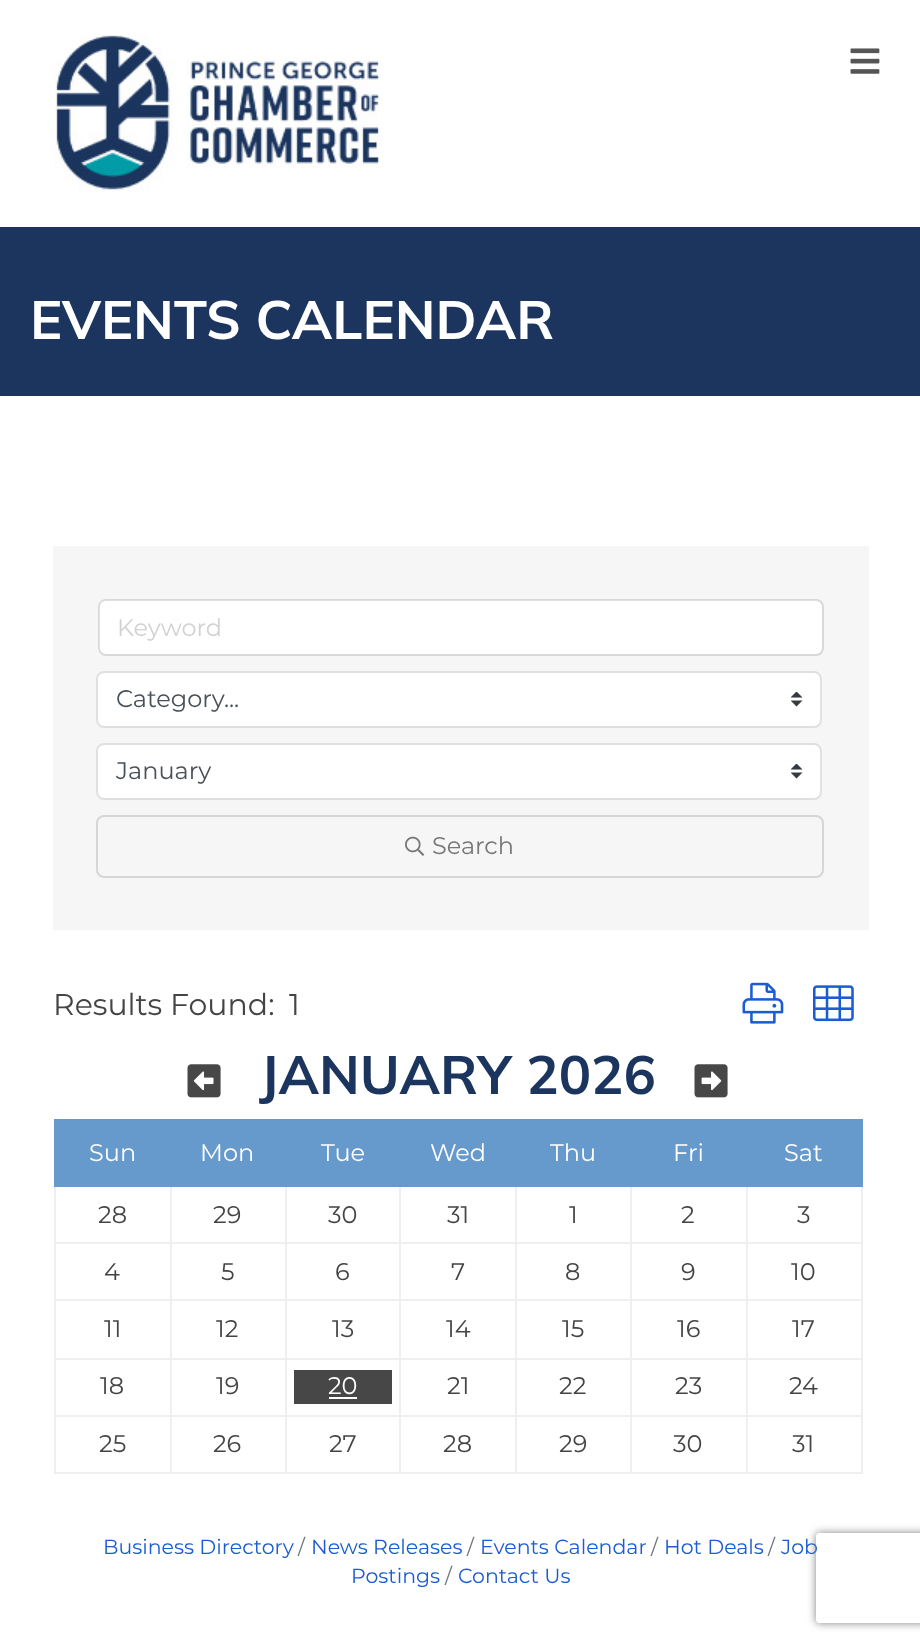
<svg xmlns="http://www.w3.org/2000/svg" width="920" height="1644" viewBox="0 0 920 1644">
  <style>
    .t1 { font: bold 54px Mulish; fill: #fff; }
    .t2 { font: 24px Montserrat; fill: #d2d2d2; }
    .t3 { font: 24px Montserrat; fill: #495057; }
    .t4 { font: 24px Montserrat; fill: #777; }
    .t5 { font: 30px Montserrat; fill: #444; }
    .t6 { font: bold 54px Mulish; fill: #1c355e; }
    .t7 { font: 24px Montserrat; fill: #fff; }
    .t8 { font: 24px Montserrat; fill: #444; }
    .t9 { font: 20.5px Montserrat; fill: #6c757d; }
    .t10 { font: 20.5px Montserrat; fill: #1b5cd2; }
  </style>
  <defs>
    <clipPath id="clip1"><path d="M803 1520H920V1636H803ZM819 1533H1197C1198.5 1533 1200 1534.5 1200 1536V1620C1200 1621.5 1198.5 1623 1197 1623H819C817.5 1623 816 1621.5 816 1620V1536C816 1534.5 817.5 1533 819 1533Z" clip-rule="evenodd"/></clipPath>
  </defs>
  <rect width="100%" height="100%" fill="#fff"/>
  <image x="54" y="35" width="326" height="157" href="images/1.png"/>
  <image x="850" y="48" width="30" height="26" href="images/2.png"/>
  <rect x="0" y="227" width="920" height="169" fill="#1c355e"/>
  <text x="30" y="339" class="t1">EVENTS CALENDAR</text>
  <rect x="53" y="546" width="816" height="384" fill="#f6f6f6"/>
  <rect x="99" y="600" width="723" height="54" rx="6" fill="#fff"/>
  <rect x="99" y="600" width="724" height="55" rx="7" fill="none" stroke="#0000001f" stroke-width="2"/>
  <text x="117" y="636" class="t2">Keyword</text>
  <rect x="96" y="671" width="726" height="57" rx="8" fill="#fff"/>
  <image x="791" y="692" width="12" height="15" href="images/3.png"/>
  <rect x="97" y="672" width="724" height="55" rx="7" fill="none" stroke="#0000001f" stroke-width="2"/>
  <text x="116" y="707" class="t3">Category...</text>
  <rect x="96" y="743" width="726" height="57" rx="8" fill="#fff"/>
  <image x="791" y="764" width="12" height="15" href="images/3.png"/>
  <rect x="97" y="744" width="724" height="55" rx="7" fill="none" stroke="#0000001f" stroke-width="2"/>
  <text x="116" y="779" class="t3">January</text>
  <rect x="97" y="816" width="726" height="61" rx="7" fill="none" stroke="#d6d6d6" stroke-width="2"/>
  <image x="405" y="836" width="20" height="20" href="images/4.png"/>
  <text x="432" y="854" class="t4">Search</text>
  <text x="53" y="1015" class="t5">Results Found:</text>
  <text x="289" y="1015" class="t5">1</text>
  <image x="742" y="982" width="42" height="42" href="images/5.png"/>
  <image x="813" y="985" width="41" height="37" href="images/6.png"/>
  <image x="187" y="1064" width="34" height="34" href="images/7.png"/>
  <text x="259" y="1094" class="t6">JANUARY 2026</text>
  <image x="694" y="1064" width="34" height="34" href="images/8.png"/>
  <rect x="56" y="1121" width="114" height="64" fill="#69c"/>
  <rect x="170" y="1119" width="576" height="66" fill="#69c"/>
  <rect x="54" y="1119" width="117" height="2" fill="#69c"/>
  <rect x="746" y="1119" width="117" height="2" fill="#69c"/>
  <rect x="746" y="1242" width="117" height="2" fill="#efefef"/>
  <rect x="746" y="1299" width="117" height="2" fill="#efefef"/>
  <rect x="746" y="1358" width="117" height="2" fill="#efefef"/>
  <rect x="746" y="1415" width="117" height="2" fill="#efefef"/>
  <rect x="861" y="1415" width="2" height="58" fill="#efefef"/>
  <rect x="861" y="1358" width="2" height="58" fill="#efefef"/>
  <rect x="861" y="1299" width="2" height="60" fill="#efefef"/>
  <rect x="861" y="1185" width="2" height="116" fill="#efefef"/>
  <rect x="861" y="1119" width="2" height="68" fill="#69c"/>
  <rect x="746" y="1472" width="117" height="2" fill="#efefef"/>
  <rect x="746" y="1415" width="2" height="58" fill="#efefef"/>
  <rect x="630" y="1415" width="117" height="2" fill="#efefef"/>
  <rect x="746" y="1358" width="2" height="58" fill="#efefef"/>
  <rect x="630" y="1358" width="117" height="2" fill="#efefef"/>
  <rect x="746" y="1299" width="2" height="60" fill="#efefef"/>
  <rect x="630" y="1299" width="117" height="2" fill="#efefef"/>
  <rect x="746" y="1242" width="2" height="59" fill="#efefef"/>
  <rect x="630" y="1242" width="117" height="2" fill="#efefef"/>
  <rect x="630" y="1472" width="117" height="2" fill="#efefef"/>
  <rect x="630" y="1415" width="2" height="58" fill="#efefef"/>
  <rect x="515" y="1415" width="117" height="2" fill="#efefef"/>
  <rect x="630" y="1358" width="2" height="58" fill="#efefef"/>
  <rect x="515" y="1358" width="117" height="2" fill="#efefef"/>
  <rect x="630" y="1299" width="2" height="60" fill="#efefef"/>
  <rect x="515" y="1299" width="117" height="2" fill="#efefef"/>
  <rect x="630" y="1242" width="2" height="59" fill="#efefef"/>
  <rect x="515" y="1242" width="117" height="2" fill="#efefef"/>
  <rect x="515" y="1472" width="117" height="2" fill="#efefef"/>
  <rect x="515" y="1415" width="2" height="58" fill="#efefef"/>
  <rect x="399" y="1415" width="117" height="2" fill="#efefef"/>
  <rect x="515" y="1358" width="2" height="58" fill="#efefef"/>
  <rect x="399" y="1358" width="117" height="2" fill="#efefef"/>
  <rect x="515" y="1299" width="2" height="60" fill="#efefef"/>
  <rect x="399" y="1299" width="117" height="2" fill="#efefef"/>
  <rect x="515" y="1242" width="2" height="59" fill="#efefef"/>
  <rect x="399" y="1242" width="117" height="2" fill="#efefef"/>
  <rect x="399" y="1472" width="117" height="2" fill="#efefef"/>
  <rect x="399" y="1415" width="2" height="58" fill="#efefef"/>
  <rect x="285" y="1415" width="116" height="2" fill="#efefef"/>
  <rect x="399" y="1358" width="2" height="58" fill="#efefef"/>
  <rect x="285" y="1358" width="116" height="2" fill="#efefef"/>
  <rect x="399" y="1299" width="2" height="60" fill="#efefef"/>
  <rect x="285" y="1299" width="116" height="2" fill="#efefef"/>
  <rect x="399" y="1242" width="2" height="59" fill="#efefef"/>
  <rect x="285" y="1242" width="116" height="2" fill="#efefef"/>
  <rect x="285" y="1472" width="116" height="2" fill="#efefef"/>
  <rect x="285" y="1415" width="2" height="58" fill="#efefef"/>
  <rect x="170" y="1415" width="117" height="2" fill="#efefef"/>
  <rect x="285" y="1358" width="2" height="58" fill="#efefef"/>
  <rect x="170" y="1358" width="117" height="2" fill="#efefef"/>
  <rect x="285" y="1299" width="2" height="60" fill="#efefef"/>
  <rect x="170" y="1299" width="117" height="2" fill="#efefef"/>
  <rect x="285" y="1242" width="2" height="59" fill="#efefef"/>
  <rect x="170" y="1242" width="117" height="2" fill="#efefef"/>
  <rect x="170" y="1472" width="117" height="2" fill="#efefef"/>
  <rect x="170" y="1415" width="2" height="58" fill="#efefef"/>
  <rect x="54" y="1415" width="117" height="2" fill="#efefef"/>
  <rect x="170" y="1358" width="2" height="58" fill="#efefef"/>
  <rect x="54" y="1358" width="117" height="2" fill="#efefef"/>
  <rect x="170" y="1299" width="2" height="60" fill="#efefef"/>
  <rect x="54" y="1299" width="117" height="2" fill="#efefef"/>
  <rect x="170" y="1242" width="2" height="59" fill="#efefef"/>
  <rect x="54" y="1242" width="117" height="2" fill="#efefef"/>
  <rect x="170" y="1185" width="2" height="59" fill="#efefef"/>
  <rect x="285" y="1185" width="2" height="59" fill="#efefef"/>
  <rect x="399" y="1185" width="2" height="59" fill="#efefef"/>
  <rect x="515" y="1185" width="2" height="59" fill="#efefef"/>
  <rect x="630" y="1185" width="2" height="59" fill="#efefef"/>
  <rect x="746" y="1185" width="2" height="59" fill="#efefef"/>
  <rect x="54" y="1472" width="117" height="2" fill="#efefef"/>
  <rect x="54" y="1415" width="2" height="58" fill="#efefef"/>
  <rect x="54" y="1358" width="2" height="58" fill="#efefef"/>
  <rect x="54" y="1299" width="2" height="60" fill="#efefef"/>
  <rect x="54" y="1185" width="2" height="116" fill="#efefef"/>
  <rect x="54" y="1185" width="809" height="2" fill="#69c"/>
  <rect x="54" y="1119" width="2" height="68" fill="#69c"/>
  <text x="89" y="1161" class="t7">Sun</text>
  <text x="200" y="1161" class="t7">Mon</text>
  <text x="321" y="1161" class="t7">Tue</text>
  <text x="430" y="1161" class="t7">Wed</text>
  <text x="550" y="1161" class="t7">Thu</text>
  <text x="673" y="1161" class="t7">Fri</text>
  <rect x="746" y="1121" width="115" height="64" fill="#69c"/>
  <text x="784" y="1161" class="t7">Sat</text>
  <text x="98" y="1223" class="t8">28</text>
  <text x="213" y="1223" class="t8">29</text>
  <text x="328" y="1223" class="t8">30</text>
  <text x="447" y="1223" class="t8">31</text>
  <text x="569" y="1223" class="t8">1</text>
  <text x="681" y="1223" class="t8">2</text>
  <text x="797" y="1223" class="t8">3</text>
  <text x="104" y="1280" class="t8">4</text>
  <text x="221" y="1280" class="t8">5</text>
  <text x="335" y="1280" class="t8">6</text>
  <text x="451" y="1280" class="t8">7</text>
  <text x="565" y="1280" class="t8">8</text>
  <text x="681" y="1280" class="t8">9</text>
  <text x="791" y="1280" class="t8">10</text>
  <text x="104" y="1337" class="t8">11</text>
  <text x="216" y="1337" class="t8">12</text>
  <text x="332" y="1337" class="t8">13</text>
  <text x="446" y="1337" class="t8">14</text>
  <text x="562" y="1337" class="t8">15</text>
  <text x="677" y="1337" class="t8">16</text>
  <text x="792" y="1337" class="t8">17</text>
  <text x="100" y="1394" class="t8">18</text>
  <text x="216" y="1394" class="t8">19</text>
  <rect x="294" y="1370" width="98" height="34" fill="#474747"/>
  <text x="328" y="1394" class="t7">20</text>
  <rect x="329" y="1397" width="28" height="2" fill="#fff"/>
  <text x="447" y="1394" class="t8">21</text>
  <text x="559" y="1394" class="t8">22</text>
  <text x="675" y="1394" class="t8">23</text>
  <text x="789" y="1394" class="t8">24</text>
  <text x="99" y="1452" class="t8">25</text>
  <text x="213" y="1452" class="t8">26</text>
  <text x="329" y="1452" class="t8">27</text>
  <text x="443" y="1452" class="t8">28</text>
  <text x="559" y="1452" class="t8">29</text>
  <text x="673" y="1452" class="t8">30</text>
  <text x="792" y="1452" class="t8">31</text>
  <text x="298" y="1554" class="t9">/</text>
  <text x="311" y="1554" class="t10">News Releases</text>
  <text x="768" y="1554" class="t9">/</text>
  <text x="781" y="1554" class="t10">Job</text>
  <text x="351" y="1583" class="t10">Postings</text>
  <text x="103" y="1554" class="t10">Business Directory</text>
  <text x="467" y="1554" class="t9">/</text>
  <text x="480" y="1554" class="t10">Events Calendar</text>
  <text x="651" y="1554" class="t9">/</text>
  <text x="664" y="1554" class="t10">Hot Deals</text>
  <text x="445" y="1583" class="t9">/</text>
  <text x="458" y="1583" class="t10">Contact Us</text>
  <g clip-path="url(#clip1)">
    <rect x="816" y="1533" width="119" height="90" rx="3" fill="#808080" filter="blur(4px)"/>
  </g>
</svg>
